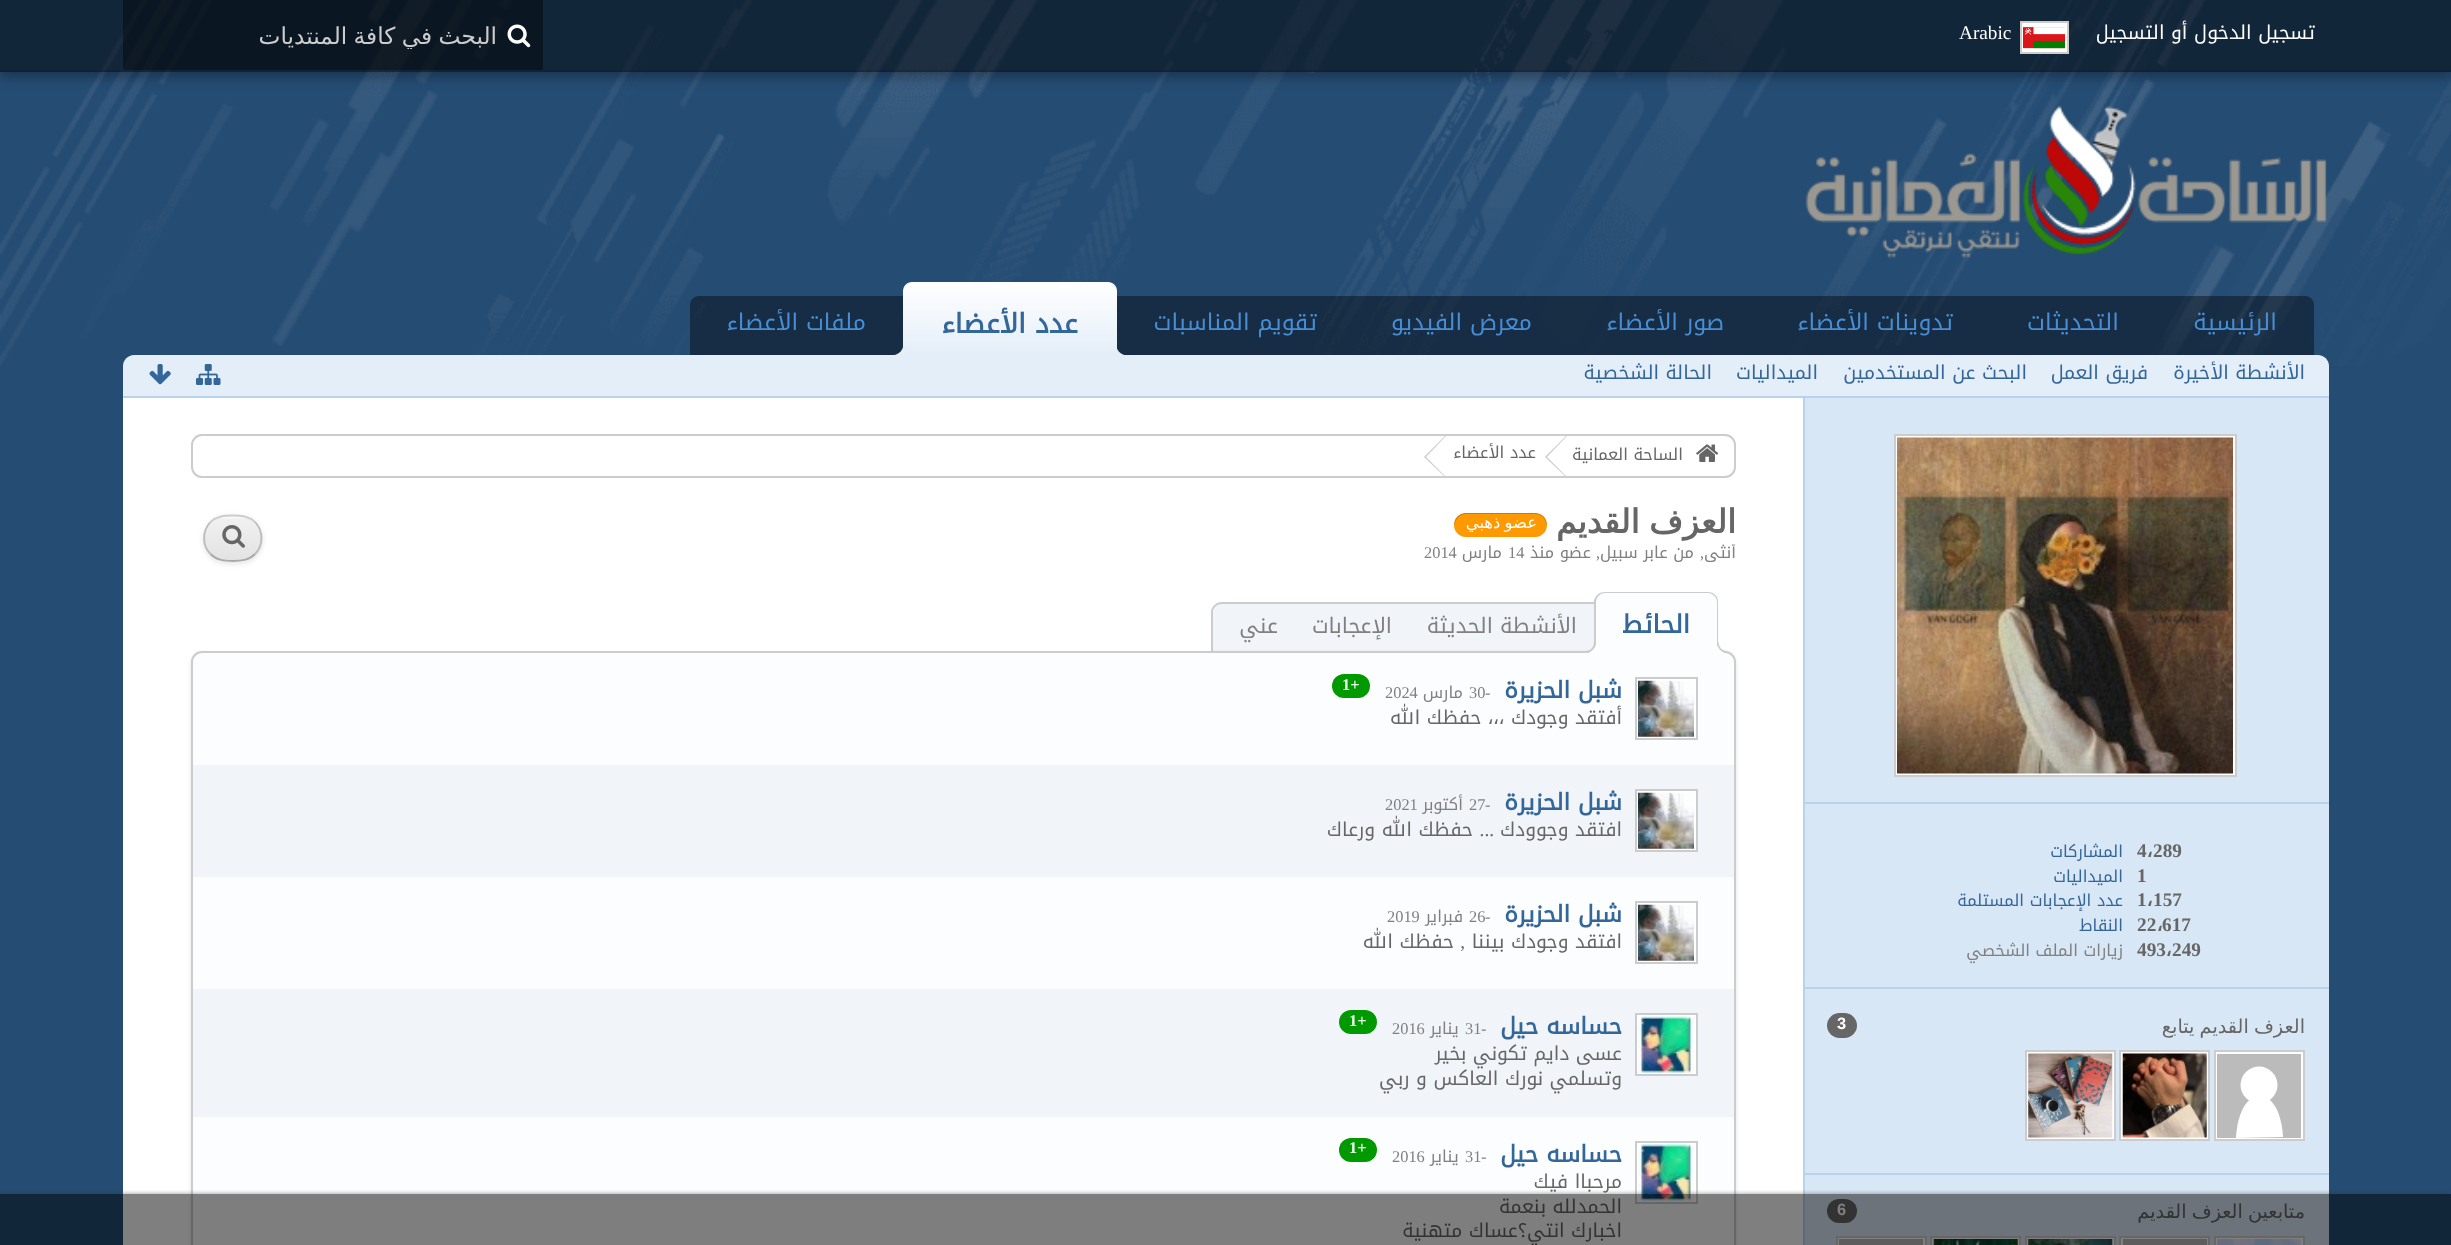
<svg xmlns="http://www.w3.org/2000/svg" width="2451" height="1245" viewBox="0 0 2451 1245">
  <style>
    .t1 { font: 19.25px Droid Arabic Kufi; direction: rtl; fill: #fff; }
    .t2 { font: 19.25px Liberation Serif; fill: #fff; }
    .t3 { font: 23.25px DejaVu Sans; direction: rtl; fill: #ccc; }
    .t4 { font: 23px Droid Arabic Kufi; direction: rtl; fill: #488ed4; }
    .t5 { font: bold 27px Droid Arabic Kufi; direction: rtl; fill: #369; }
    .t6 { font: 19.25px Droid Arabic Kufi; direction: rtl; fill: #369; }
    .t7 { font: bold 19.25px Liberation Serif; fill: #666; }
    .t8 { font: bold 19.25px Droid Arabic Kufi; fill: #666; }
    .t9 { font: 16.4px Droid Arabic Kufi; direction: rtl; fill: #369; }
    .t10 { font: 16.4px Droid Arabic Kufi; direction: rtl; fill: #808080; }
    .t11 { font: 19.25px DejaVu Sans; direction: rtl; fill: #666; }
    .t12 { font: bold 16.4px Liberation Sans; fill: #fff; }
    .t13 { font: 16.4px Droid Arabic Kufi; direction: rtl; fill: #666; }
    .t14 { font: bold 32.75px DejaVu Sans; direction: rtl; fill: #666; }
    .t15 { font: 16.4px DejaVu Sans; direction: rtl; fill: #fff; }
    .t16 { font: 16.4px Liberation Serif; fill: #808080; }
    .t17 { font: bold 25px Droid Arabic Kufi; direction: rtl; fill: #369; }
    .t18 { font: 21.25px Droid Arabic Kufi; direction: rtl; fill: #808080; }
    .t19 { font: bold 23px Droid Arabic Kufi; direction: rtl; fill: #369; }
    .t20 { font: bold 16.4px Liberation Serif; fill: #efe; }
    .t21 { font: 19.25px Droid Arabic Kufi; direction: rtl; fill: #666; }
    .t22 { font: 19.25px Liberation Serif; direction: rtl; fill: #666; }
  </style>
  <defs>
    <clipPath id="clip1"><path d="M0 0H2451V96H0ZM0 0H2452V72H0Z" clip-rule="evenodd"/></clipPath>
    <clipPath id="clip2"><rect x="144" y="23" width="353" height="26"/></clipPath>
    <linearGradient id="g1" gradientUnits="userSpaceOnUse" x1="1010" y1="282" x2="1010" y2="355"><stop offset="0" stop-color="#fff"/><stop offset="1" stop-color="#e4eef8"/></linearGradient>
    <clipPath id="clip3"><rect x="203" y="515" width="60" height="47" rx="23.5"/></clipPath>
    <linearGradient id="g2" gradientUnits="userSpaceOnUse" x1="233" y1="516" x2="233" y2="560"><stop offset="0" stop-color="#fdfdfd"/><stop offset="0.08" stop-color="#f0f0f0"/><stop offset="1" stop-color="#e3e3e3"/></linearGradient>
    <linearGradient id="g3" gradientUnits="userSpaceOnUse" x1="233" y1="560" x2="233" y2="604"><stop offset="0" stop-color="#fdfdfd"/><stop offset="0.08" stop-color="#f0f0f0"/><stop offset="1" stop-color="#e3e3e3"/></linearGradient>
    <clipPath id="clip4"><rect x="940" y="544" width="796" height="21"/></clipPath>
    <clipPath id="clip5"><rect x="1717" y="642" width="10" height="11"/></clipPath>
    <clipPath id="clip6"><rect x="1586" y="642" width="10" height="11"/></clipPath>
    <clipPath id="clip7"><rect x="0" y="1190" width="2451" height="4"/></clipPath>
  </defs>
  <rect width="100%" height="100%" fill="#254c73"/>
  <image x="0" y="0" width="2451" height="366" href="images/1.png"/>
  <g clip-path="url(#clip1)">
    <rect x="0" y="5" width="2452" height="72" fill="#0000004d" filter="blur(6px)"/>
  </g>
  <rect x="0" y="0" width="2451" height="72" fill="#00000080"/>
  <rect x="0" y="70" width="2451" height="2" fill="#0000001a"/>
  <text x="2315" y="39" class="t1">تسجيل الدخول أو التسجيل</text>
  <rect x="2021" y="22" width="47" height="31" fill="#fff" stroke="#ccc" stroke-width="2"/>
  <image x="2023" y="27" width="42" height="22" href="images/2.png"/>
  <text x="1959" y="39" class="t2">Arabic</text>
  <rect x="123" y="0" width="420" height="70" fill="#00000066"/>
  <image x="507" y="24" width="24" height="24" href="images/3.png"/>
  <g clip-path="url(#clip2)">
    <text x="497" y="44" word-spacing="-1" class="t3">البحث في كافة المنتديات</text>
  </g>
  <image x="1805" y="105" width="522" height="153" href="images/4.png"/>
  <path d="M699 296H2305C2310 296 2314 300 2314 305V355H690V305C690 300 694 296 699 296Z" fill="#00000066"/>
  <text x="2277" y="330" class="t4">الرئيسية</text>
  <text x="2119" y="330" class="t4">التحديثات</text>
  <text x="1953" y="330" class="t4">تدوينات الأعضاء</text>
  <text x="1724" y="330" class="t4">صور الأعضاء</text>
  <text x="1532" y="330" class="t4">معرض الفيديو</text>
  <text x="1317" y="330" class="t4">تقويم المناسبات</text>
  <path d="M912 282H1108C1113 282 1117 286 1117 291V355H903V291C903 286 907 282 912 282Z" fill="url(#g1)"/>
  <text x="1078" y="333" class="t5">عدد الأعضاء</text>
  <path d="M134 355H2318C2324 355 2329 360 2329 366V397H123V366C123 360 128 355 134 355Z" fill="#e4eef8"/>
  <path d="M1113 347C1113 354.5 1117.5 359 1125 359V355C1121 354.5 1117.5 351 1116.5 347Z" fill="#e4eef8"/>
  <path d="M894 355V359C902 359 907 355.5 907 347H903C902 351 898.5 354.5 894 355Z" fill="#e4eef8"/>
  <text x="866" y="330" class="t4">ملفات الأعضاء</text>
  <rect x="1803" y="397" width="2" height="848" fill="#b8d3ed"/>
  <rect x="123" y="396" width="2206" height="2" fill="#b8d3ed"/>
  <text x="2305" y="379" class="t6">الأنشطة الأخيرة</text>
  <text x="2148" y="379" class="t6">فريق العمل</text>
  <text x="2027" y="379" class="t6">البحث عن المستخدمين</text>
  <text x="1818" y="379" class="t6">الميداليات</text>
  <text x="1712" y="379" class="t6">الحالة الشخصية</text>
  <image x="196" y="364" width="25" height="21" href="images/5.png"/>
  <image x="149" y="364" width="22" height="21" href="images/6.png"/>
  <rect x="123" y="398" width="1680" height="847" fill="#fff"/>
  <rect x="1805" y="398" width="524" height="847" fill="#d8e7f5"/>
  <rect x="1803" y="802" width="526" height="2" fill="#b8d3ed"/>
  <rect x="1895" y="435" width="341" height="341" fill="#fff" stroke="#ccc" stroke-width="2"/>
  <image x="1897" y="437" width="336" height="337" href="images/7.png"/>
  <rect x="1803" y="987" width="526" height="2" fill="#b8d3ed"/>
  <text x="2153" y="857" class="t7">289</text>
  <text x="2147" y="857" class="t8">،</text>
  <text x="2137" y="857" class="t7">4</text>
  <text x="2123" y="857" class="t9">المشاركات</text>
  <text x="2137" y="882" class="t7">1</text>
  <text x="2123" y="882" class="t9">الميداليات</text>
  <text x="2153" y="906" class="t7">157</text>
  <text x="2147" y="906" class="t8">،</text>
  <text x="2137" y="906" class="t7">1</text>
  <text x="2123" y="906" class="t9">عدد الإعجابات المستلمة</text>
  <text x="2162" y="931" class="t7">617</text>
  <text x="2157" y="931" class="t8">،</text>
  <text x="2137" y="931" class="t7">22</text>
  <text x="2123" y="931" class="t9">النقاط</text>
  <text x="2172" y="956" class="t7">249</text>
  <text x="2166" y="956" class="t8">،</text>
  <text x="2137" y="956" class="t7">493</text>
  <text x="2123" y="956" class="t10">زيارات الملف الشخصي</text>
  <rect x="1803" y="1173" width="526" height="2" fill="#b8d3ed"/>
  <text x="2305" y="1033" word-spacing="-1" class="t11">العزف القديم يتابع</text>
  <rect x="1827" y="1013" width="30" height="25" rx="12.5" fill="#666"/>
  <text x="1837" y="1029" class="t12">3</text>
  <rect x="2215" y="1051" width="89" height="89" fill="#fff" stroke="#ccc" stroke-width="2"/>
  <rect x="2217" y="1054" width="84" height="84" fill="#bbb"/>
  <path d="M2236 1138C2239 1082 2280 1082 2283 1137" fill="#fff"/>
  <circle cx="2259" cy="1085" r="18.5" fill="#fff"/>
  <rect x="2120" y="1051" width="89" height="89" fill="#fff" stroke="#ccc" stroke-width="2"/>
  <image x="2122" y="1053" width="85" height="85" href="images/8.png"/>
  <rect x="2026" y="1051" width="89" height="89" fill="#fff" stroke="#ccc" stroke-width="2"/>
  <image x="2028" y="1053" width="85" height="85" href="images/9.png"/>
  <text x="2305" y="1218" word-spacing="-1" class="t11">متابعين العزف القديم</text>
  <rect x="1827" y="1199" width="30" height="24" rx="12" fill="#666"/>
  <text x="1837" y="1215" class="t12">6</text>
  <rect x="2215" y="1237" width="89" height="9" fill="#fff" stroke="#ccc" stroke-width="2"/>
  <image x="2217" y="1239" width="85" height="6" href="images/10.png"/>
  <rect x="2120" y="1237" width="89" height="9" fill="#fff" stroke="#ccc" stroke-width="2"/>
  <rect x="2123" y="1239" width="84" height="6" fill="#bbb"/>
  <rect x="2026" y="1237" width="89" height="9" fill="#fff" stroke="#ccc" stroke-width="2"/>
  <image x="2028" y="1239" width="85" height="6" href="images/11.png"/>
  <rect x="1931" y="1237" width="89" height="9" fill="#fff" stroke="#ccc" stroke-width="2"/>
  <image x="1933" y="1239" width="85" height="6" href="images/12.png"/>
  <rect x="1837" y="1237" width="89" height="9" fill="#fff" stroke="#ccc" stroke-width="2"/>
  <rect x="1839" y="1239" width="84" height="6" fill="#bbb"/>
  <rect x="192" y="435" width="1543" height="42" rx="10" fill="none" stroke="#ccc" stroke-width="2"/>
  <image x="1696" y="444" width="23" height="18" href="images/13.png"/>
  <text x="1683" y="460" class="t13">الساحة العمانية</text>
  <path d="M1565 476L1545 457L1566 436H1572V476Z" fill="#ccc"/>
  <path d="M1566 476L1547 457L1567 436H1573V476Z" fill="#fff"/>
  <text x="1536" y="458" class="t13">عدد الأعضاء</text>
  <path d="M1444 476L1424 457L1445 436H1451V476Z" fill="#ccc"/>
  <path d="M1445 476L1426 457L1446 436H1452V476Z" fill="#fff"/>
  <text x="1736" y="533" word-spacing="-1" class="t14">العزف القديم</text>
  <rect x="1454" y="513" width="93" height="24" rx="12" fill="#f90"/>
  <path d="M1466 514H1535C1542 514 1546 519 1547 526V525C1547 518 1542 513 1535 513H1466C1459 513 1454 518 1454 525V526C1455 519 1460 514 1466 514Z" fill="#00000033"/>
  <text x="1537" y="528" word-spacing="-1" class="t15">عضو ذهبي</text>
  <rect x="203" y="516" width="60" height="48" rx="24" fill="#0000001a" filter="blur(2.5px)"/>
  <g clip-path="url(#clip3)">
    <rect x="203" y="516" width="60" height="44" fill="url(#g2)"/>
    <rect x="217" y="560" width="32" height="2" fill="url(#g3)"/>
  </g>
  <path d="M210.5 522C217 516 224.5 515.5 233 515.5C241 515.5 248.5 516 255 522" fill="none" stroke="#cdcdcd" stroke-width="1.8"/>
  <path d="M255 522C263.5 531 263.5 545.5 255 554" fill="none" stroke="#bbb" stroke-width="1.8"/>
  <path d="M255 554C248.5 560.5 241 561 233 561C224.5 561 217 560.5 210.5 554" fill="none" stroke="#a9a9a9" stroke-width="1.8"/>
  <path d="M210.5 554C202 545.5 202 531 210.5 522" fill="none" stroke="#bbb" stroke-width="1.8"/>
  <image x="222" y="525" width="23" height="23" href="images/14.png"/>
  <g clip-path="url(#clip4)">
    <text x="1736" y="558" class="t10">أنثى</text>
  </g>
  <text x="1700" y="558" class="t16">,</text>
  <text x="1694" y="558" class="t10">من عابر سبيل</text>
  <text x="1596" y="558" class="t16">,</text>
  <text x="1591" y="558" class="t10">عضو منذ</text>
  <text x="1508" y="558" class="t16">14</text>
  <text x="1502" y="558" class="t10">مارس</text>
  <text x="1424" y="558" class="t16">2014</text>
  <path d="M1222 604H1708C1713 604 1717 608 1717 613V653H1213V613C1213 608 1217 604 1222 604Z" fill="#f1f5fa"/>
  <path d="M1222 602H1708C1714 602 1718 607 1718 612V653H1211V612C1211 607 1216 602 1222 602ZM1222 604H1708C1713 604 1717 608 1717 612V653H1213V612C1213 608 1217 604 1222 604Z" fill="#ccc" fill-rule="evenodd"/>
  <rect x="191" y="653" width="1545" height="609" rx="11" fill="#0000001a" filter="blur(2px)"/>
  <rect x="192" y="652" width="1543" height="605" rx="10" fill="#fcfdfe" stroke="#ccc" stroke-width="2"/>
  <path d="M1605 592H1708C1714 592 1719 597 1719 603V653H1594V603C1594 597 1599 592 1605 592Z" fill="#fcfdfe"/>
  <path d="M1605 592C1602 592 1599 593 1597 595L1599 596C1600 594 1602 593 1605 593H1708C1710 593 1713 594 1714 596L1715 595C1714 593 1711 592 1708 592Z" fill="#ccc"/>
  <path d="M1718 652V602C1718 599 1717 596 1715 595L1714 596C1716 597 1717 600 1717 602V651Z" fill="#ccc"/>
  <path d="M1718 652V653H1594L1596 651H1717Z" fill="#fcfdfe"/>
  <path d="M1594 653L1596 651V602C1596 600 1597 597 1599 596L1597 595C1596 596 1595 598 1594 600Z" fill="#ccc"/>
  <text x="1690" y="633" class="t17">الحائط</text>
  <g clip-path="url(#clip5)">
    <path d="M1713 644C1713 650 1718 655 1724 655V652C1720.5 651 1717.5 648 1717 644Z" fill="#fcfdfe"/>
  </g>
  <path d="M1717 642H1727V653C1721.5 653 1717 648 1717 642ZM1718.5 642H1727V651C1722.5 651 1718.5 647 1718.5 642Z" fill="#ccc" fill-rule="evenodd"/>
  <g clip-path="url(#clip6)">
    <path d="M1589 652V655C1595 655 1600 650 1600 644H1596C1595 648 1592.5 651 1589 652Z" fill="#fcfdfe"/>
  </g>
  <path d="M1585.5 642H1596C1596 648 1591.5 653 1585.5 653ZM1585.5 642H1594C1594 647 1590.5 651 1585.5 651Z" fill="#ccc" fill-rule="evenodd"/>
  <text x="1577" y="633" class="t18">الأنشطة الحديثة</text>
  <text x="1392" y="633" class="t18">الإعجابات</text>
  <text x="1278" y="633" class="t18">عني</text>
  <rect x="1636" y="678" width="61" height="61" fill="#fff" stroke="#ccc" stroke-width="2"/>
  <image x="1638" y="680" width="56" height="57" href="images/15.png"/>
  <text x="1622" y="698" class="t19">شبل الحزيرة</text>
  <text x="1485" y="698" class="t16">-</text>
  <text x="1469" y="698" class="t16">30</text>
  <text x="1463" y="698" class="t10">مارس</text>
  <text x="1385" y="698" class="t16">2024</text>
  <rect x="1332" y="674" width="38" height="24" rx="12" fill="#090"/>
  <text x="1342" y="690" class="t20">1+</text>
  <text x="1622" y="724" class="t21">أفتقد وجودك ،،، حفظك الله</text>
  <rect x="193" y="765" width="1541" height="112" fill="#f1f5fa"/>
  <rect x="1636" y="790" width="61" height="61" fill="#fff" stroke="#ccc" stroke-width="2"/>
  <image x="1638" y="792" width="56" height="57" href="images/15.png"/>
  <text x="1622" y="810" class="t19">شبل الحزيرة</text>
  <text x="1485" y="810" class="t16">-</text>
  <text x="1469" y="810" class="t16">27</text>
  <text x="1463" y="810" class="t10">أكتوبر</text>
  <text x="1385" y="810" class="t16">2021</text>
  <text x="1622" y="836" class="t21">افتقد وجوودك</text>
  <text x="1494" y="836" class="t22">...</text>
  <text x="1473" y="836" class="t21">حفظك الله ورعاك</text>
  <rect x="1636" y="902" width="61" height="61" fill="#fff" stroke="#ccc" stroke-width="2"/>
  <image x="1638" y="904" width="56" height="57" href="images/15.png"/>
  <text x="1622" y="922" class="t19">شبل الحزيرة</text>
  <text x="1485" y="922" class="t16">-</text>
  <text x="1469" y="922" class="t16">26</text>
  <text x="1463" y="922" class="t10">فبراير</text>
  <text x="1387" y="922" class="t16">2019</text>
  <text x="1622" y="948" class="t21">افتقد وجودك بيننا</text>
  <text x="1465" y="948" class="t22">,</text>
  <text x="1454" y="948" class="t21">حفظك الله</text>
  <rect x="193" y="989" width="1541" height="128" fill="#f1f5fa"/>
  <rect x="1636" y="1014" width="61" height="61" fill="#fff" stroke="#ccc" stroke-width="2"/>
  <image x="1638" y="1016" width="56" height="57" href="images/16.png"/>
  <text x="1622" y="1034" class="t19">حساسه حيل</text>
  <text x="1481" y="1034" class="t16">-</text>
  <text x="1465" y="1034" class="t16">31</text>
  <text x="1459" y="1034" class="t10">يناير</text>
  <text x="1392" y="1034" class="t16">2016</text>
  <rect x="1339" y="1010" width="38" height="24" rx="12" fill="#090"/>
  <text x="1349" y="1026" class="t20">1+</text>
  <text x="1622" y="1060" class="t21">عسى دايم تكوني بخير</text>
  <text x="1622" y="1085" class="t21">وتسلمي نورك العاكس و ربي</text>
  <rect x="1636" y="1142" width="61" height="61" fill="#fff" stroke="#ccc" stroke-width="2"/>
  <image x="1638" y="1144" width="56" height="57" href="images/17.png"/>
  <text x="1622" y="1162" class="t19">حساسه حيل</text>
  <text x="1481" y="1162" class="t16">-</text>
  <text x="1465" y="1162" class="t16">31</text>
  <text x="1459" y="1162" class="t10">يناير</text>
  <text x="1392" y="1162" class="t16">2016</text>
  <rect x="1339" y="1138" width="38" height="24" rx="12" fill="#090"/>
  <text x="1349" y="1153" class="t20">1+</text>
  <text x="1622" y="1188" class="t21">مرحباا فيك</text>
  <text x="1622" y="1213" class="t21">الحمدلله بنعمة</text>
  <text x="1622" y="1237" class="t21">اخبارك انتي؟عساك متهنية</text>
  <g clip-path="url(#clip7)">
    <rect x="-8" y="1194" width="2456" height="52" fill="#33333380" filter="blur(2.5px)"/>
  </g>
  <rect x="0" y="1194" width="2451" height="51" fill="#00000080"/>
</svg>
